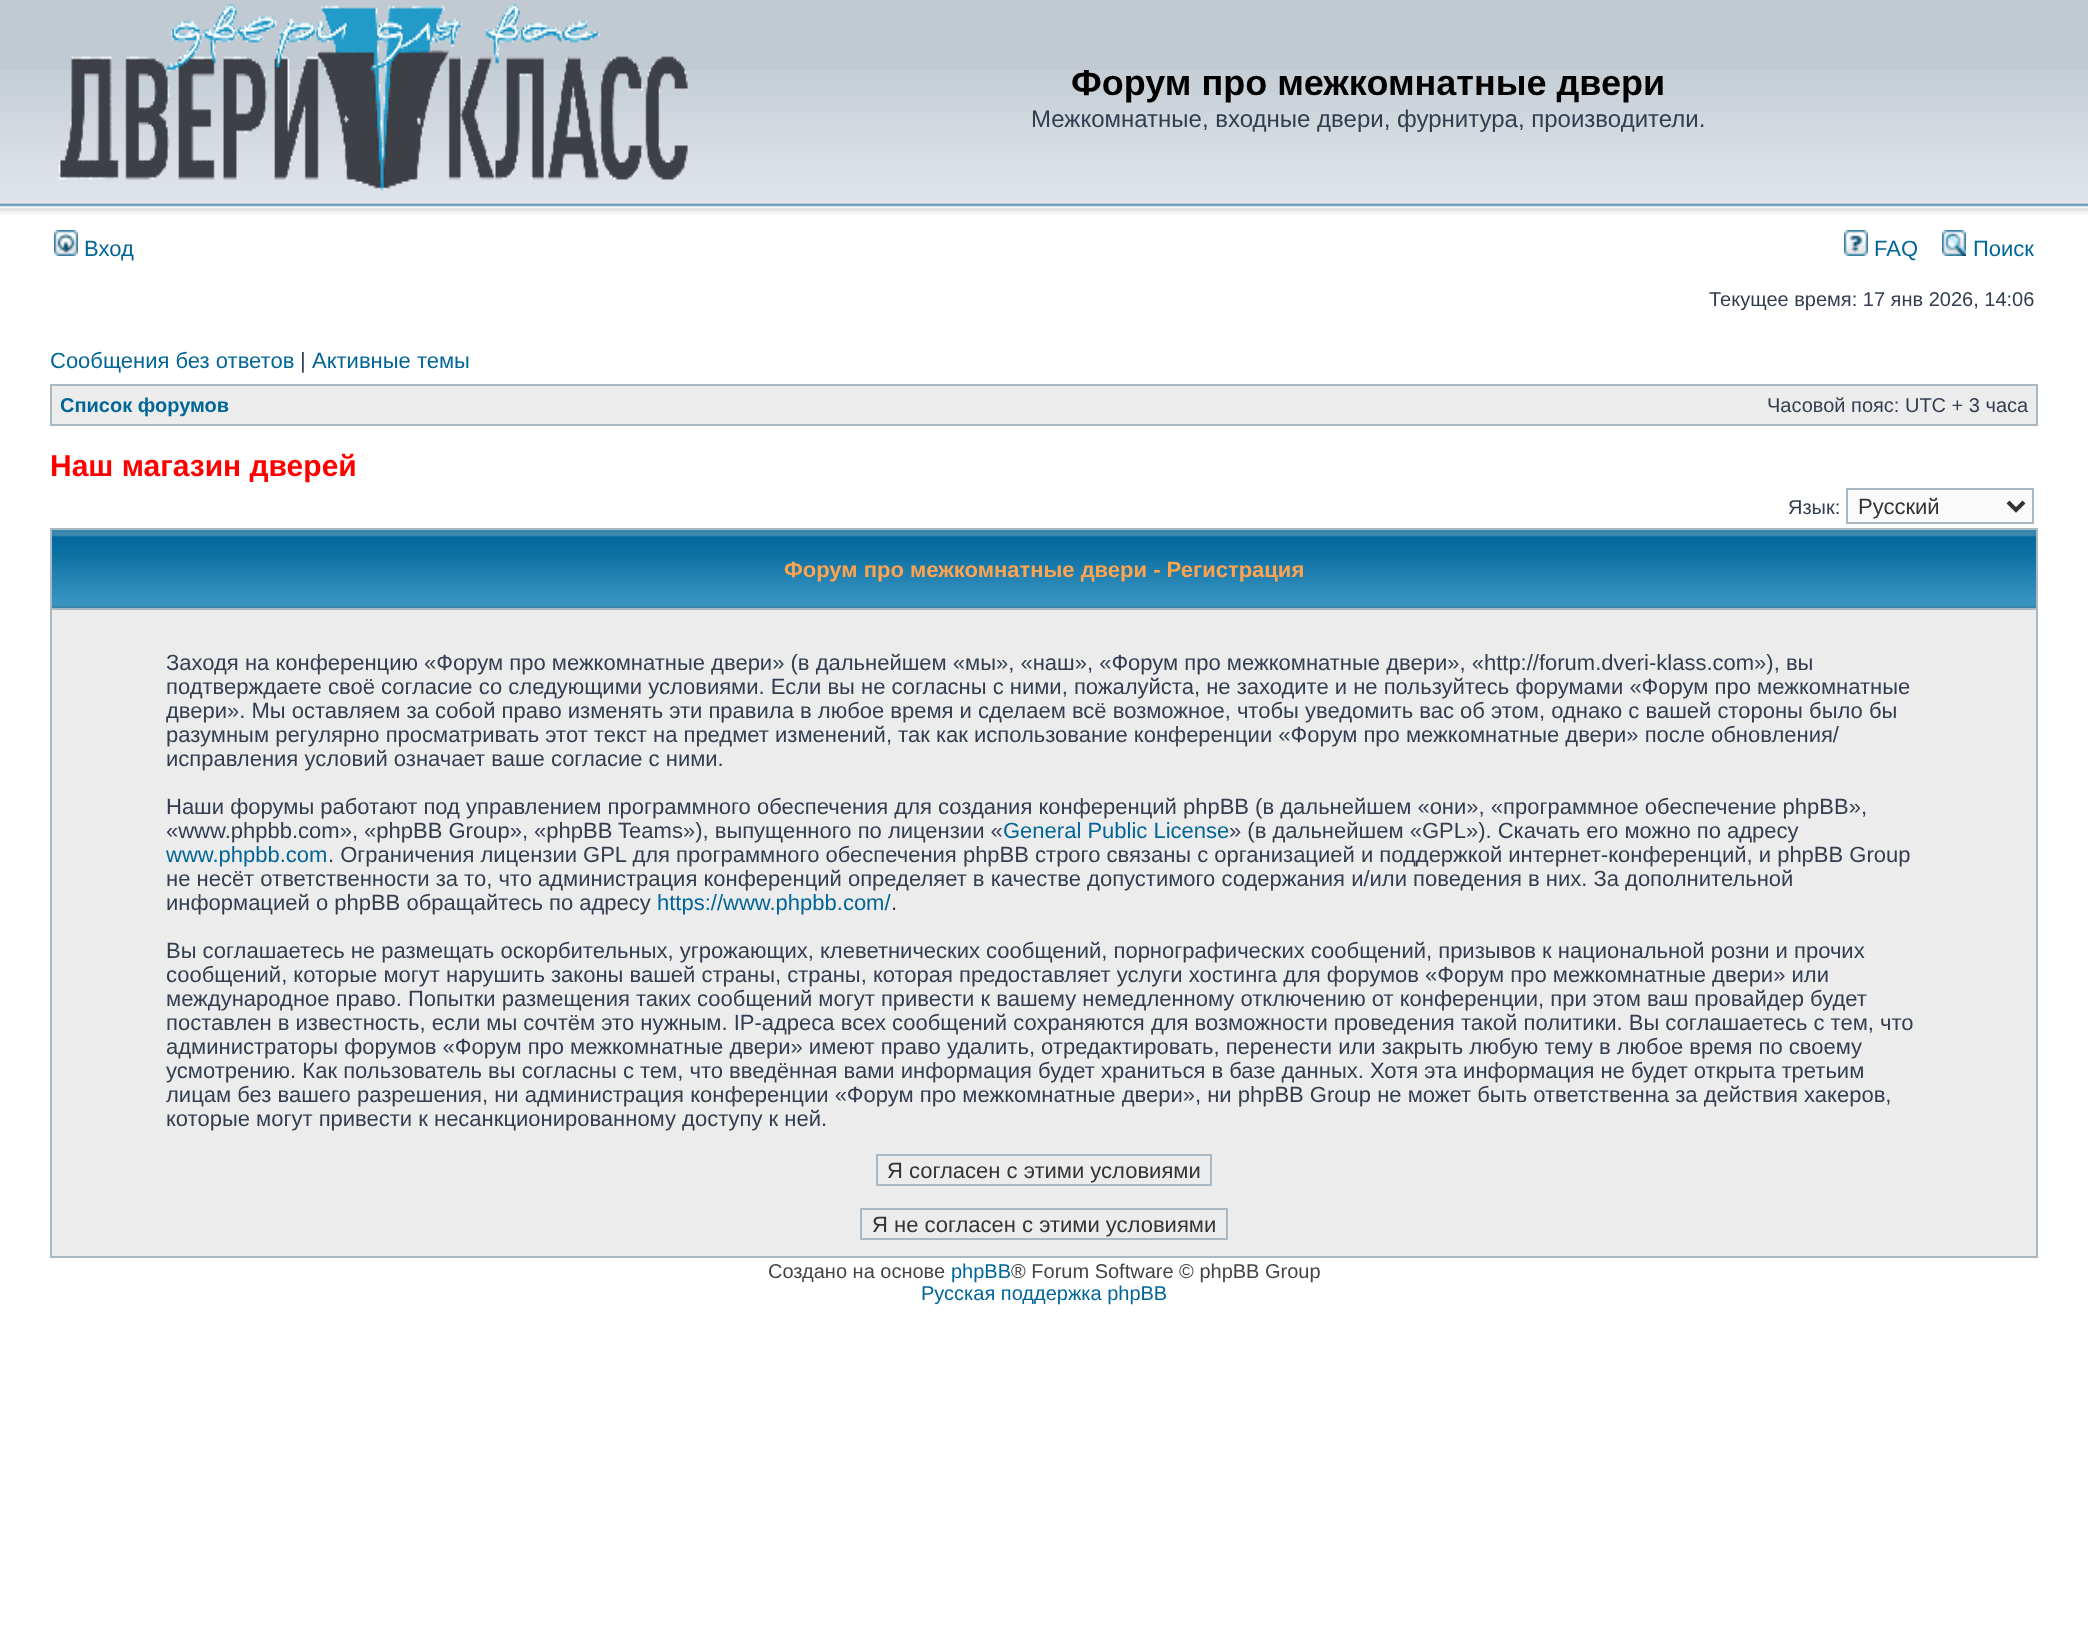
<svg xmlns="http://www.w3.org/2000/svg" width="2088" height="1647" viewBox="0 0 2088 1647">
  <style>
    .t1 { font: bold 36px Liberation Sans; fill: #000; }
    .t2 { font: 24px Liberation Sans; fill: #323d4f; }
    .t3 { font: 22px Liberation Sans; fill: #006597; }
    .t4 { font: 20px Liberation Sans; fill: #323d4f; }
    .t5 { font: 22px Liberation Sans; fill: #323d4f; }
    .t6 { font: bold 20px Liberation Sans; fill: #006597; }
    .t7 { font: bold 30px Liberation Sans; fill: #f00; }
    .t8 { font: 22px Liberation Sans; fill: #333; }
    .t9 { font: bold 22px Liberation Sans; fill: #ffa34f; }
    .t10 { font: 20px Liberation Sans; fill: #444; }
    .t11 { font: 20px Liberation Sans; fill: #006597; }
  </style>
  <rect width="100%" height="100%" fill="#fff"/>
  <rect x="0" y="0" width="2088" height="70" fill="#c1cad2"/>
  <image x="0" y="70" width="2088" height="156" href="images/1.png"/>
  <image x="58" y="4" width="630" height="187" href="images/2.png"/>
  <text x="1071" y="95" class="t1">Форум про межкомнатные двери</text>
  <text x="1031" y="127" class="t2">Межкомнатные, входные двери, фурнитура, производители.</text>
  <image x="54" y="230" width="24" height="26" href="images/3.png"/>
  <text x="84" y="256" class="t3">Вход</text>
  <image x="1844" y="230" width="24" height="26" href="images/4.png"/>
  <text x="1874" y="256" class="t3">FAQ</text>
  <image x="1942" y="230" width="24" height="26" href="images/5.png"/>
  <text x="1973" y="256" class="t3">Поиск</text>
  <text x="1709" y="306" class="t4">Текущее время: 17 янв 2026, 14:06</text>
  <text x="50" y="368" class="t3">Сообщения без ответов</text>
  <text x="300" y="368" class="t5">|</text>
  <text x="312" y="368" class="t3">Активные темы</text>
  <rect x="50" y="384" width="1988" height="42" fill="#a9b8c2"/>
  <rect x="52" y="386" width="1984" height="38" fill="#ececec"/>
  <text x="60" y="412" class="t6">Список форумов</text>
  <text x="1767" y="412" class="t4">Часовой пояс: UTC + 3 часа</text>
  <text x="50" y="476" class="t7">Наш магазин дверей</text>
  <text x="1788" y="514" class="t4">Язык:</text>
  <rect x="1847" y="489" width="186" height="34" fill="#fafafa" stroke="#a9b8c2" stroke-width="2"/>
  <path d="M2008 502L2016 510L2024 502" fill="none" stroke="#333" stroke-width="4"/>
  <text x="1858" y="514" class="t8">Русский</text>
  <rect x="50" y="528" width="1988" height="730" fill="#a9b8c2"/>
  <image x="52" y="530" width="1984" height="78" href="images/6.png"/>
  <text x="784" y="577" class="t9">Форум про межкомнатные двери - Регистрация</text>
  <rect x="52" y="610" width="1984" height="646" fill="#ececec"/>
  <text x="166" y="670" class="t5">Заходя на конференцию «Форум про межкомнатные двери» (в дальнейшем «мы», «наш», «Форум про межкомнатные двери», «http://forum.dveri-klass.com»), вы</text>
  <text x="166" y="694" class="t5">подтверждаете своё согласие со следующими условиями. Если вы не согласны с ними, пожалуйста, не заходите и не пользуйтесь форумами «Форум про межкомнатные</text>
  <text x="166" y="718" class="t5">двери». Мы оставляем за собой право изменять эти правила в любое время и сделаем всё возможное, чтобы уведомить вас об этом, однако с вашей стороны было бы</text>
  <text x="166" y="742" class="t5">разумным регулярно просматривать этот текст на предмет изменений, так как использование конференции «Форум про межкомнатные двери» после обновления/</text>
  <text x="166" y="766" class="t5">исправления условий означает ваше согласие с ними.</text>
  <text x="166" y="814" class="t5">Наши форумы работают под управлением программного обеспечения для создания конференций phpBB (в дальнейшем «они», «программное обеспечение phpBB»,</text>
  <text x="166" y="838" class="t5">«www.phpbb.com», «phpBB Group», «phpBB Teams»), выпущенного по лицензии «</text>
  <text x="1003" y="838" class="t3">General Public License</text>
  <text x="1229" y="838" class="t5">» (в дальнейшем «GPL»). Скачать его можно по адресу</text>
  <text x="166" y="862" class="t3">www.phpbb.com</text>
  <text x="328" y="862" class="t5">. Ограничения лицензии GPL для программного обеспечения phpBB строго связаны с организацией и поддержкой интернет-конференций, и phpBB Group</text>
  <text x="166" y="886" class="t5">не несёт ответственности за то, что администрация конференций определяет в качестве допустимого содержания и/или поведения в них. За дополнительной</text>
  <text x="166" y="910" class="t5">информацией о phpBB обращайтесь по адресу</text>
  <text x="657" y="910" class="t3">https://www.phpbb.com/</text>
  <text x="891" y="910" class="t5">.</text>
  <text x="166" y="958" class="t5">Вы соглашаетесь не размещать оскорбительных, угрожающих, клеветнических сообщений, порнографических сообщений, призывов к национальной розни и прочих</text>
  <text x="166" y="982" class="t5">сообщений, которые могут нарушить законы вашей страны, страны, которая предоставляет услуги хостинга для форумов «Форум про межкомнатные двери» или</text>
  <text x="166" y="1006" class="t5">международное право. Попытки размещения таких сообщений могут привести к вашему немедленному отключению от конференции, при этом ваш провайдер будет</text>
  <text x="166" y="1030" class="t5">поставлен в известность, если мы сочтём это нужным. IP-адреса всех сообщений сохраняются для возможности проведения такой политики. Вы соглашаетесь с тем, что</text>
  <text x="166" y="1054" class="t5">администраторы форумов «Форум про межкомнатные двери» имеют право удалить, отредактировать, перенести или закрыть любую тему в любое время по своему</text>
  <text x="166" y="1078" class="t5">усмотрению. Как пользователь вы согласны с тем, что введённая вами информация будет храниться в базе данных. Хотя эта информация не будет открыта третьим</text>
  <text x="166" y="1102" class="t5">лицам без вашего разрешения, ни администрация конференции «Форум про межкомнатные двери», ни phpBB Group не может быть ответственна за действия хакеров,</text>
  <text x="166" y="1126" class="t5">которые могут привести к несанкционированному доступу к ней.</text>
  <rect x="877" y="1155" width="334" height="30" fill="none" stroke="#a9b8c2" stroke-width="2"/>
  <text x="887" y="1178" class="t8">Я согласен с этими условиями</text>
  <rect x="861" y="1209" width="366" height="30" fill="none" stroke="#a9b8c2" stroke-width="2"/>
  <text x="872" y="1232" class="t8">Я не согласен с этими условиями</text>
  <text x="768" y="1278" class="t10">Создано на основе</text>
  <text x="951" y="1278" class="t11">phpBB</text>
  <text x="1011" y="1278" class="t10">® Forum Software © phpBB Group</text>
  <text x="921" y="1300" class="t11">Русская поддержка phpBB</text>
</svg>
